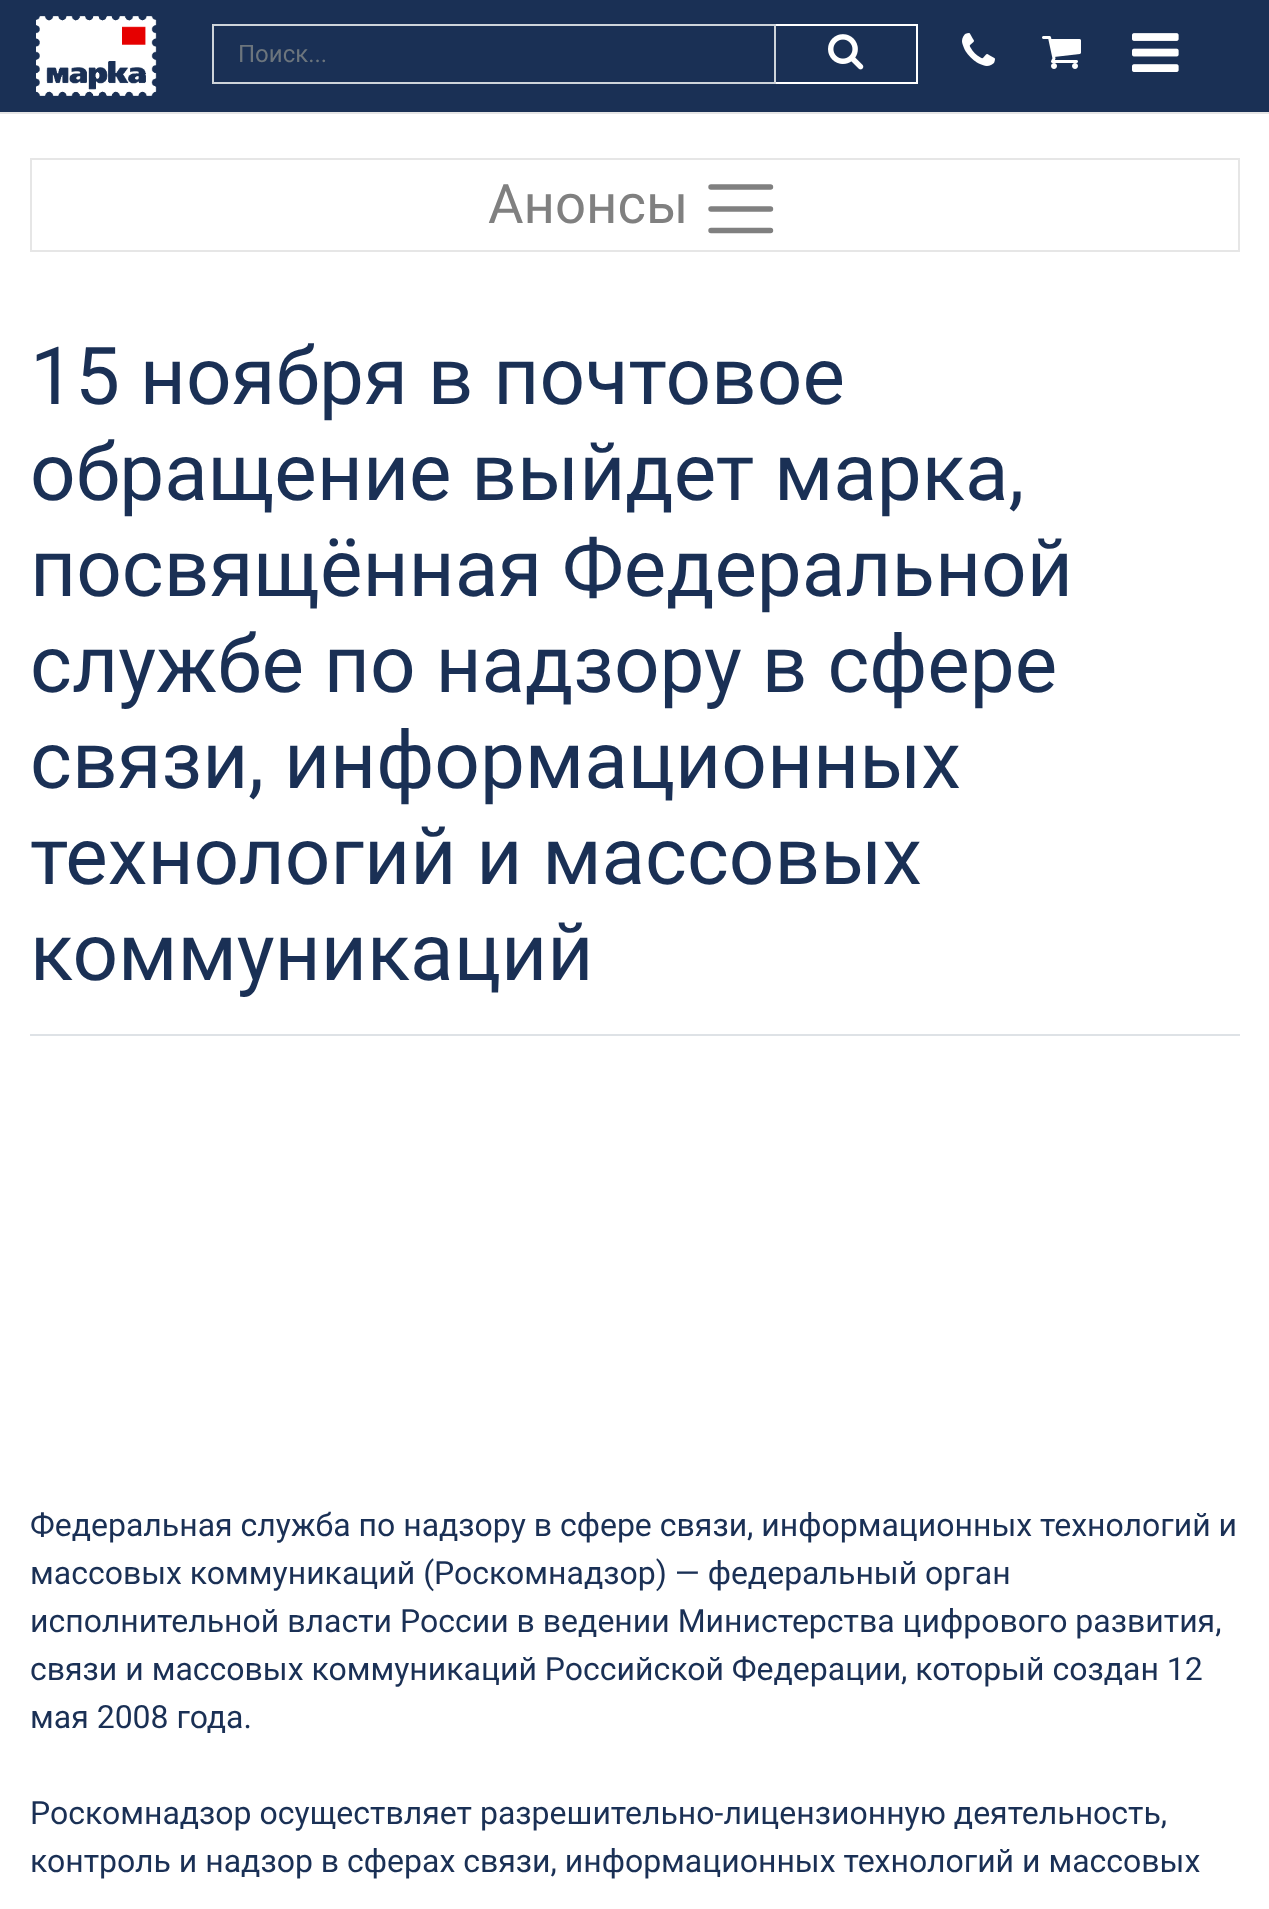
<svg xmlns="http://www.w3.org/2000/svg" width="1269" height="1909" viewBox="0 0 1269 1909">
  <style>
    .t1 { font: 24px Roboto; fill: #6c757d; }
    .t2 { font: 54.5px Roboto; fill: #808080; }
    .t3 { font: 80px Roboto; fill: #1a3055; }
    .t4 { font: 32px Roboto; fill: #1a3055; }
  </style>
  <rect width="100%" height="100%" fill="#fff"/>
  <rect x="0" y="0" width="1269" height="112" fill="#1a3055"/>
  <rect x="0" y="112" width="1269" height="2" fill="#e5e5e5"/>
  <image x="36" y="16" width="121" height="80" href="images/1.png"/>
  <rect x="213" y="25" width="562" height="58" fill="none" stroke="#ced4da" stroke-width="2"/>
  <text x="238" y="62" class="t1">Поиск...</text>
  <rect x="776" y="24" width="142" height="2" fill="#fff"/>
  <rect x="916" y="24" width="2" height="60" fill="#fff"/>
  <rect x="776" y="82" width="142" height="2" fill="#fff"/>
  <image x="828" y="34" width="36" height="36" href="images/2.png"/>
  <image x="962" y="33" width="33" height="33" href="images/3.png"/>
  <image x="1042" y="36" width="39" height="33" href="images/4.png"/>
  <image x="1132" y="33" width="47" height="39" href="images/5.png"/>
  <rect x="31" y="159" width="1208" height="92" fill="none" stroke="#e6e6e6" stroke-width="2"/>
  <text x="488" y="223" class="t2">Анонсы</text>
  <path d="M711 187H770.5M711 209H770.5M711 230.5H770.5" fill="none" stroke="#808080" stroke-width="5.4" stroke-linecap="round"/>
  <rect x="30" y="1034" width="1210" height="2" fill="#dee2e6"/>
  <text x="30" y="404" class="t3">15 ноября в почтовое</text>
  <text x="30" y="500" class="t3">обращение выйдет марка,</text>
  <text x="30" y="596" class="t3">посвящённая Федеральной</text>
  <text x="30" y="692" class="t3">службе по надзору в сфере</text>
  <text x="30" y="788" class="t3">связи, информационных</text>
  <text x="30" y="884" class="t3">технологий и массовых</text>
  <text x="30" y="980" class="t3">коммуникаций</text>
  <text x="30" y="1536" class="t4">Федеральная служба по надзору в сфере связи, информационных технологий и</text>
  <text x="30" y="1584" class="t4">массовых коммуникаций (Роскомнадзор) — федеральный орган</text>
  <text x="30" y="1632" class="t4">исполнительной власти России в ведении Министерства цифрового развития,</text>
  <text x="30" y="1680" class="t4">связи и массовых коммуникаций Российской Федерации, который создан 12</text>
  <text x="30" y="1728" class="t4">мая 2008 года.</text>
  <text x="30" y="1824" class="t4">Роскомнадзор осуществляет разрешительно-лицензионную деятельность,</text>
  <text x="30" y="1872" class="t4">контроль и надзор в сферах связи, информационных технологий и массовых</text>
</svg>
